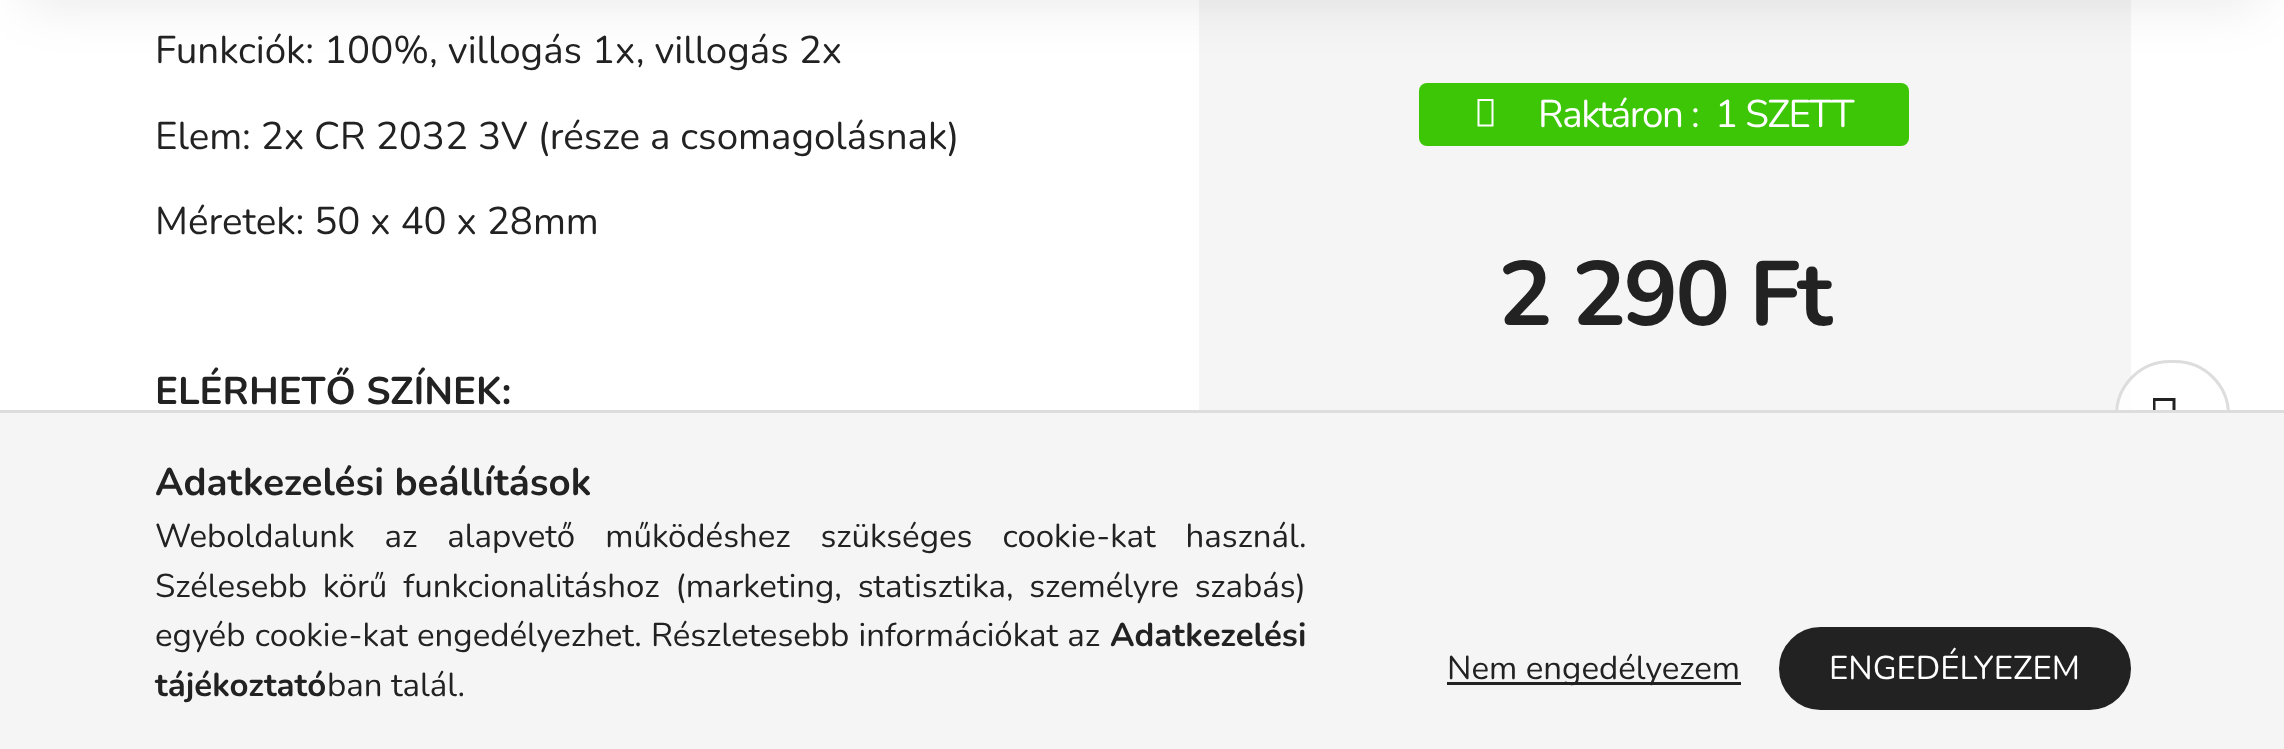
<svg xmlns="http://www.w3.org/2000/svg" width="2284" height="749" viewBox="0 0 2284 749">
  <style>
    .t1 { font: 38.5px Nunito; fill: #222; }
    .t2 { font: bold 38.5px Nunito; fill: #222; }
    .t3 { font: 38.5px Nunito; letter-spacing: -1.4px; fill: #fff; }
    .t4 { font: bold 91px Nunito; letter-spacing: -2.75px; fill: #222; }
    .t5 { font: 33px Nunito; fill: #222; }
    .t6 { font: bold 33px Nunito; fill: #222; }
    .t7 { font: 33px Nunito; fill: #fff; }
  </style>
  <rect width="100%" height="100%" fill="#fff"/>
  <rect x="1199" y="0" width="932" height="410" fill="#f5f5f5"/>
  <rect x="1419" y="83" width="490" height="63" rx="8" fill="#3cc606"/>
  <rect x="28" y="-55" width="2230" height="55" fill="#0000001a" filter="blur(27.5px)"/>
  <text x="155" y="63" class="t1">Funkciók: 100%, villogás 1x, villogás 2x</text>
  <text x="155" y="149" class="t1">Elem: 2x CR 2032 3V (része a csomagolásnak)</text>
  <text x="155" y="234" class="t1">Méretek: 50 x 40 x 28mm</text>
  <text x="155" y="404" class="t2">ELÉRHETŐ SZÍNEK:</text>
  <path d="M1477.5 126.5V99H1493.5V126.5ZM1479.5 124.5H1491.5V101H1479.5Z" fill="#fff"/>
  <text x="1538" y="127" class="t3">Raktáron :</text>
  <text x="1715" y="127" class="t3">1 SZETT</text>
  <text x="1498" y="325" class="t4">2 290 Ft</text>
  <rect x="2116.5" y="361.5" width="112" height="113" rx="53.5" fill="#ffffffcc" stroke="#ddd" stroke-width="3"/>
  <path d="M2153 437V398H2175.5V437ZM2155.5 434.5H2172.5V401H2155.5Z" fill="#222"/>
  <rect x="0" y="413" width="2284" height="336" fill="#f5f5f5"/>
  <rect x="0" y="410" width="2284" height="3" fill="#ddd"/>
  <text x="155" y="495" class="t2">Adatkezelési beállítások</text>
  <text x="155" y="547" word-spacing="21.5" class="t5">Weboldalunk az alapvető működéshez szükséges cookie-kat használ.</text>
  <text x="155" y="597" word-spacing="7.25" class="t5">Szélesebb körű funkcionalitáshoz (marketing, statisztika, személyre szabás)</text>
  <text x="155" y="646" word-spacing="0.75" class="t5">egyéb cookie-kat engedélyezhet. Részletesebb információkat az</text>
  <text x="1110" y="646" class="t6">Adatkezelési</text>
  <text x="155" y="696" class="t6">tájékoztató</text>
  <text x="327" y="696" class="t5">ban talál.</text>
  <rect x="1447" y="682" width="294" height="3" fill="#222"/>
  <text x="1447" y="679" class="t5">Nem engedélyezem</text>
  <rect x="1780.5" y="628.5" width="349" height="80" rx="40" fill="#222" stroke="#222" stroke-width="3"/>
  <text x="1829" y="679" class="t7">ENGEDÉLYEZEM</text>
</svg>
